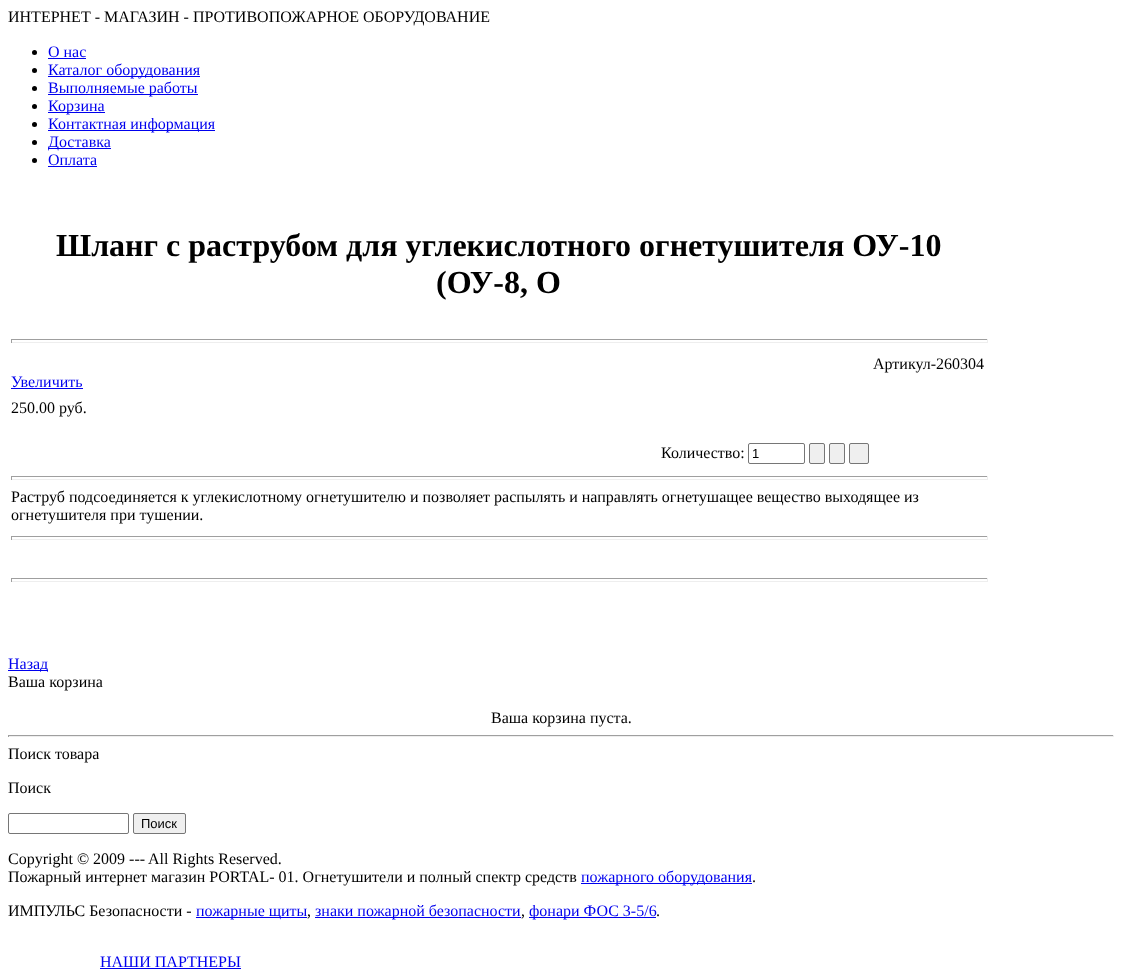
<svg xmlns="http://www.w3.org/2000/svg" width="1122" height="979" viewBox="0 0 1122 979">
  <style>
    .t1 { font: 16px Liberation Serif; fill: #000; }
    .t2 { font: 16px Liberation Serif; fill: #00e; }
    .t3 { font: bold 32px Liberation Serif; fill: #000; }
    .t4 { font: 13px Liberation Sans; fill: #000; }
  </style>
  <rect width="100%" height="100%" fill="#fff"/>
  <text x="8" y="22" class="t1">ИНТЕРНЕТ - МАГАЗИН - ПРОТИВОПОЖАРНОЕ ОБОРУДОВАНИЕ</text>
  <circle cx="34.5" cy="52.5" r="2.5" fill="#000"/>
  <text x="48" y="57" class="t2">О нас</text>
  <rect x="48" y="58" width="38" height="1" fill="#00e"/>
  <circle cx="34.5" cy="70.5" r="2.5" fill="#000"/>
  <rect x="48" y="76" width="152" height="1" fill="#00e"/>
  <text x="48" y="75" class="t2">Каталог оборудования</text>
  <circle cx="34.5" cy="88.5" r="2.5" fill="#000"/>
  <rect x="48" y="94" width="150" height="1" fill="#00e"/>
  <text x="48" y="93" class="t2">Выполняемые работы</text>
  <circle cx="34.5" cy="106.5" r="2.5" fill="#000"/>
  <rect x="48" y="112" width="57" height="1" fill="#00e"/>
  <text x="48" y="111" class="t2">Корзина</text>
  <circle cx="34.5" cy="124.5" r="2.5" fill="#000"/>
  <rect x="48" y="130" width="167" height="1" fill="#00e"/>
  <text x="48" y="129" class="t2">Контактная информация</text>
  <circle cx="34.5" cy="142.5" r="2.5" fill="#000"/>
  <rect x="48" y="148" width="63" height="1" fill="#00e"/>
  <text x="48" y="147" class="t2">Доставка</text>
  <circle cx="34.5" cy="160.5" r="2.5" fill="#000"/>
  <text x="48" y="165" class="t2">Оплата</text>
  <rect x="48" y="166" width="49" height="1" fill="#00e"/>
  <text x="56" y="256" class="t3">Шланг с раструбом для углекислотного огнетушителя ОУ-10</text>
  <text x="436" y="293" class="t3">(ОУ-8, О</text>
  <rect x="11" y="339" width="977" height="1" fill="#9f9f9f"/>
  <rect x="987" y="339" width="1" height="4" fill="#eee"/>
  <rect x="11" y="342" width="977" height="1" fill="#eee"/>
  <rect x="11" y="339" width="1" height="4" fill="#9f9f9f"/>
  <text x="873" y="369" class="t1">Артикул-260304</text>
  <text x="11" y="387" class="t2">Увеличить</text>
  <rect x="11" y="388" width="72" height="1" fill="#00e"/>
  <text x="11" y="413" class="t1">250.00 руб.</text>
  <text x="661" y="458" class="t1">Количество:</text>
  <rect x="748.5" y="443.5" width="56" height="20" rx="1.5" fill="none" stroke="#767676"/>
  <text x="752" y="458" class="t4">1</text>
  <rect x="809.5" y="443.5" width="15" height="20" rx="1.5" fill="#efefef" stroke="#767676"/>
  <rect x="829.5" y="443.5" width="15" height="20" rx="1.5" fill="#efefef" stroke="#767676"/>
  <rect x="849.5" y="443.5" width="19" height="20" rx="1.5" fill="#efefef" stroke="#767676"/>
  <rect x="11" y="476" width="977" height="1" fill="#9f9f9f"/>
  <rect x="987" y="476" width="1" height="4" fill="#eee"/>
  <rect x="11" y="479" width="977" height="1" fill="#eee"/>
  <rect x="11" y="476" width="1" height="4" fill="#9f9f9f"/>
  <text x="11" y="502" class="t1">Раструб подсоединяется к углекислотному огнетушителю и позволяет распылять и направлять огнетушащее вещество выходящее из</text>
  <text x="11" y="520" class="t1">огнетушителя при тушении.</text>
  <rect x="11" y="536" width="977" height="1" fill="#9f9f9f"/>
  <rect x="987" y="536" width="1" height="4" fill="#eee"/>
  <rect x="11" y="539" width="977" height="1" fill="#eee"/>
  <rect x="11" y="536" width="1" height="4" fill="#9f9f9f"/>
  <rect x="11" y="578" width="977" height="1" fill="#9f9f9f"/>
  <rect x="987" y="578" width="1" height="4" fill="#eee"/>
  <rect x="11" y="581" width="977" height="1" fill="#eee"/>
  <rect x="11" y="578" width="1" height="4" fill="#9f9f9f"/>
  <rect x="8" y="670" width="40" height="1" fill="#00e"/>
  <text x="8" y="669" class="t2">Назад</text>
  <text x="8" y="687" class="t1">Ваша корзина</text>
  <text x="491" y="723" class="t1">Ваша корзина пуста.</text>
  <rect x="8" y="735" width="1106" height="1" fill="#9f9f9f"/>
  <rect x="1113" y="735" width="1" height="2" fill="#eee"/>
  <rect x="8" y="736" width="1106" height="1" fill="#eee"/>
  <rect x="8" y="735" width="1" height="2" fill="#9f9f9f"/>
  <text x="8" y="759" class="t1">Поиск товара</text>
  <text x="8" y="793" class="t1">Поиск</text>
  <rect x="8.5" y="813.5" width="120" height="20" rx="1.5" fill="none" stroke="#767676"/>
  <rect x="133.5" y="813.5" width="52" height="20" rx="1.5" fill="#efefef" stroke="#767676"/>
  <text x="141" y="828" class="t4">Поиск</text>
  <text x="8" y="864" class="t1">Copyright © 2009 ---</text>
  <text x="148" y="864" class="t1">All Rights Reserved.</text>
  <text x="8" y="882" class="t1">Пожарный интернет магазин PORTAL- 01. Огнетушители и полный спектр средств</text>
  <rect x="581" y="883" width="171" height="1" fill="#00e"/>
  <text x="581" y="882" class="t2">пожарного оборудования</text>
  <text x="752" y="882" class="t1">.</text>
  <text x="8" y="916" class="t1">ИМПУЛЬС Безопасности -</text>
  <rect x="196" y="917" width="111" height="1" fill="#00e"/>
  <text x="196" y="916" class="t2">пожарные щиты</text>
  <text x="307" y="916" class="t1">,</text>
  <rect x="315" y="917" width="206" height="1" fill="#00e"/>
  <text x="315" y="916" class="t2">знаки пожарной безопасности</text>
  <text x="521" y="916" class="t1">,</text>
  <rect x="529" y="917" width="127" height="1" fill="#00e"/>
  <text x="529" y="916" class="t2">фонари ФОС 3-5/6</text>
  <text x="656" y="916" class="t1">.</text>
  <text x="100" y="967" class="t2">НАШИ ПАРТНЕРЫ</text>
  <rect x="100" y="968" width="141" height="1" fill="#00e"/>
</svg>
